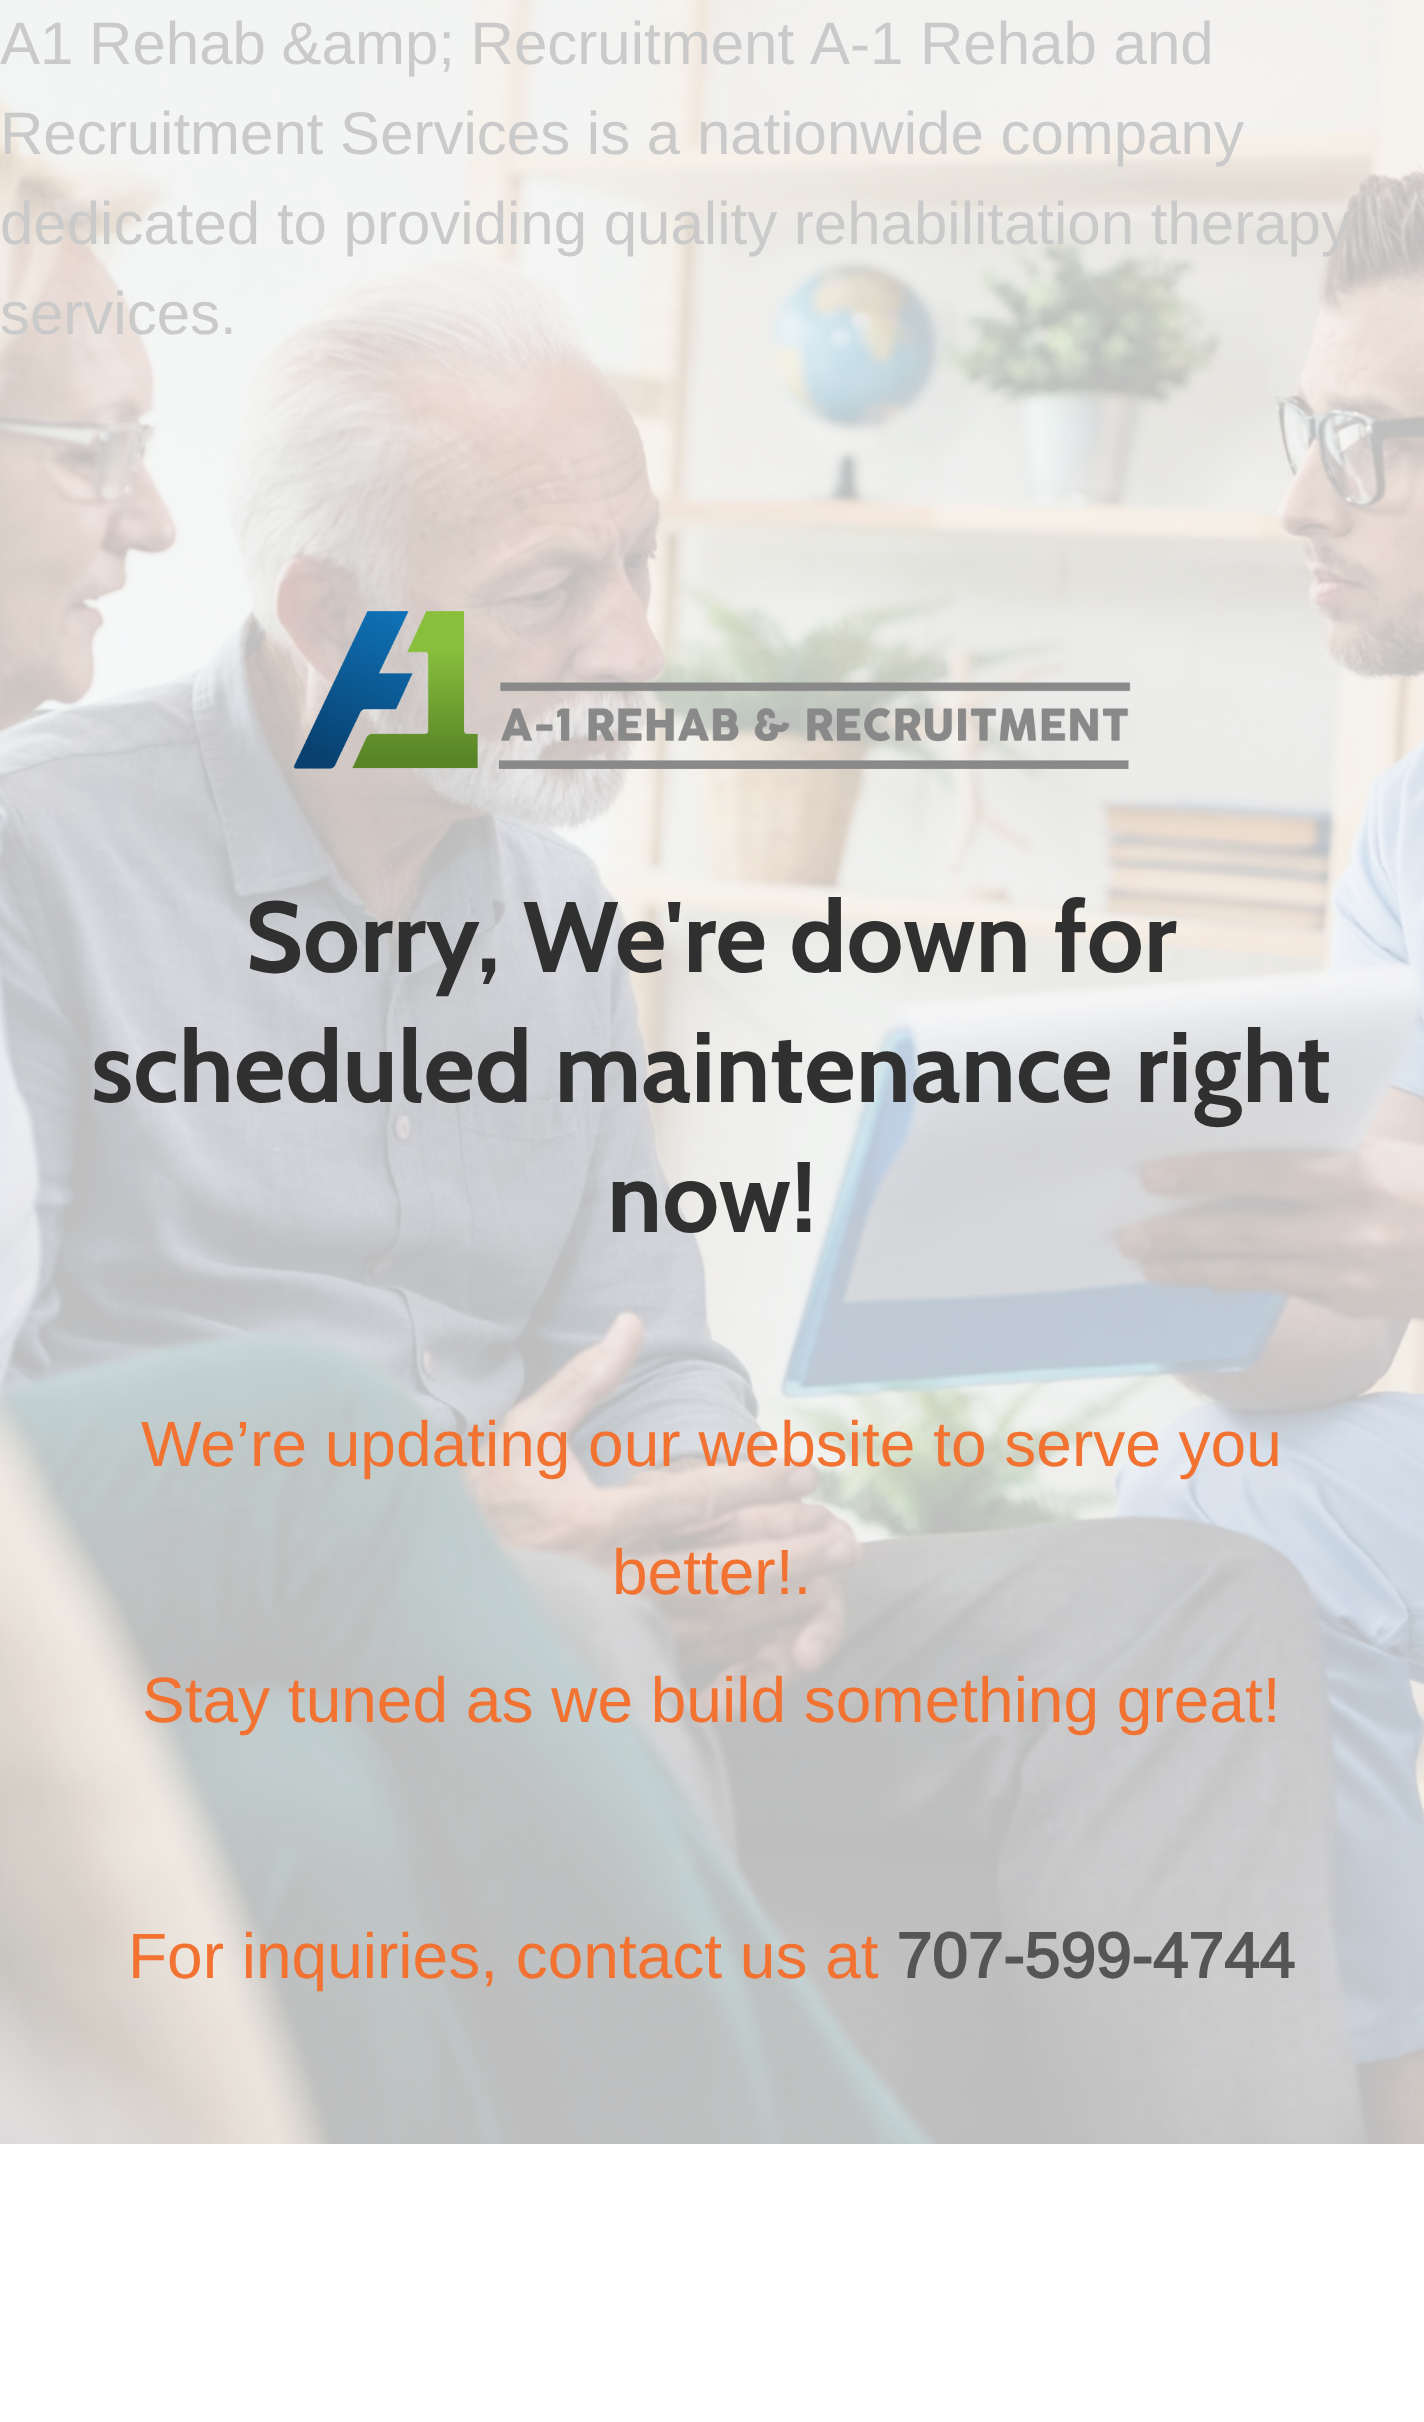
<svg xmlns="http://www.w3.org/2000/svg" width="1424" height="2422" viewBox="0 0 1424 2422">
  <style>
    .t1 { font: 60px Liberation Sans; fill: #cacaca; }
    .t2 { font: bold 100px Cabin; fill: #303030; }
    .t3 { font: 64px Arimo; fill: #f27232; }
    .t4 { font: bold 64px Arimo; fill: #555; }
  </style>
  <rect width="100%" height="100%" fill="#fff"/>
  <image x="0" y="0" width="1424" height="2144" href="images/1.png"/>
  <text x="0" y="64" word-spacing="-1" class="t1">A1 Rehab &amp;amp; Recruitment</text>
  <text x="810" y="64" class="t1">A-1 Rehab and</text>
  <text x="0" y="154" class="t1">Recruitment Services is a nationwide company</text>
  <text x="0" y="244" class="t1">dedicated to providing quality rehabilitation therapy</text>
  <text x="0" y="334" class="t1">services.</text>
  <image x="293" y="611" width="838" height="158" href="images/2.png"/>
  <text x="245" y="972" class="t2">Sorry, We're down for</text>
  <text x="91" y="1102" class="t2">scheduled maintenance right</text>
  <text x="607" y="1232" class="t2">now!</text>
  <text x="141" y="1466" class="t3">We’re updating our website to serve you</text>
  <text x="612" y="1594" class="t3">better!.</text>
  <text x="142" y="1722" class="t3">Stay tuned as we build something great!</text>
  <text x="128" y="1978" class="t3">For inquiries, contact us at</text>
  <text x="896" y="1978" class="t4">707-599-4744</text>
</svg>
